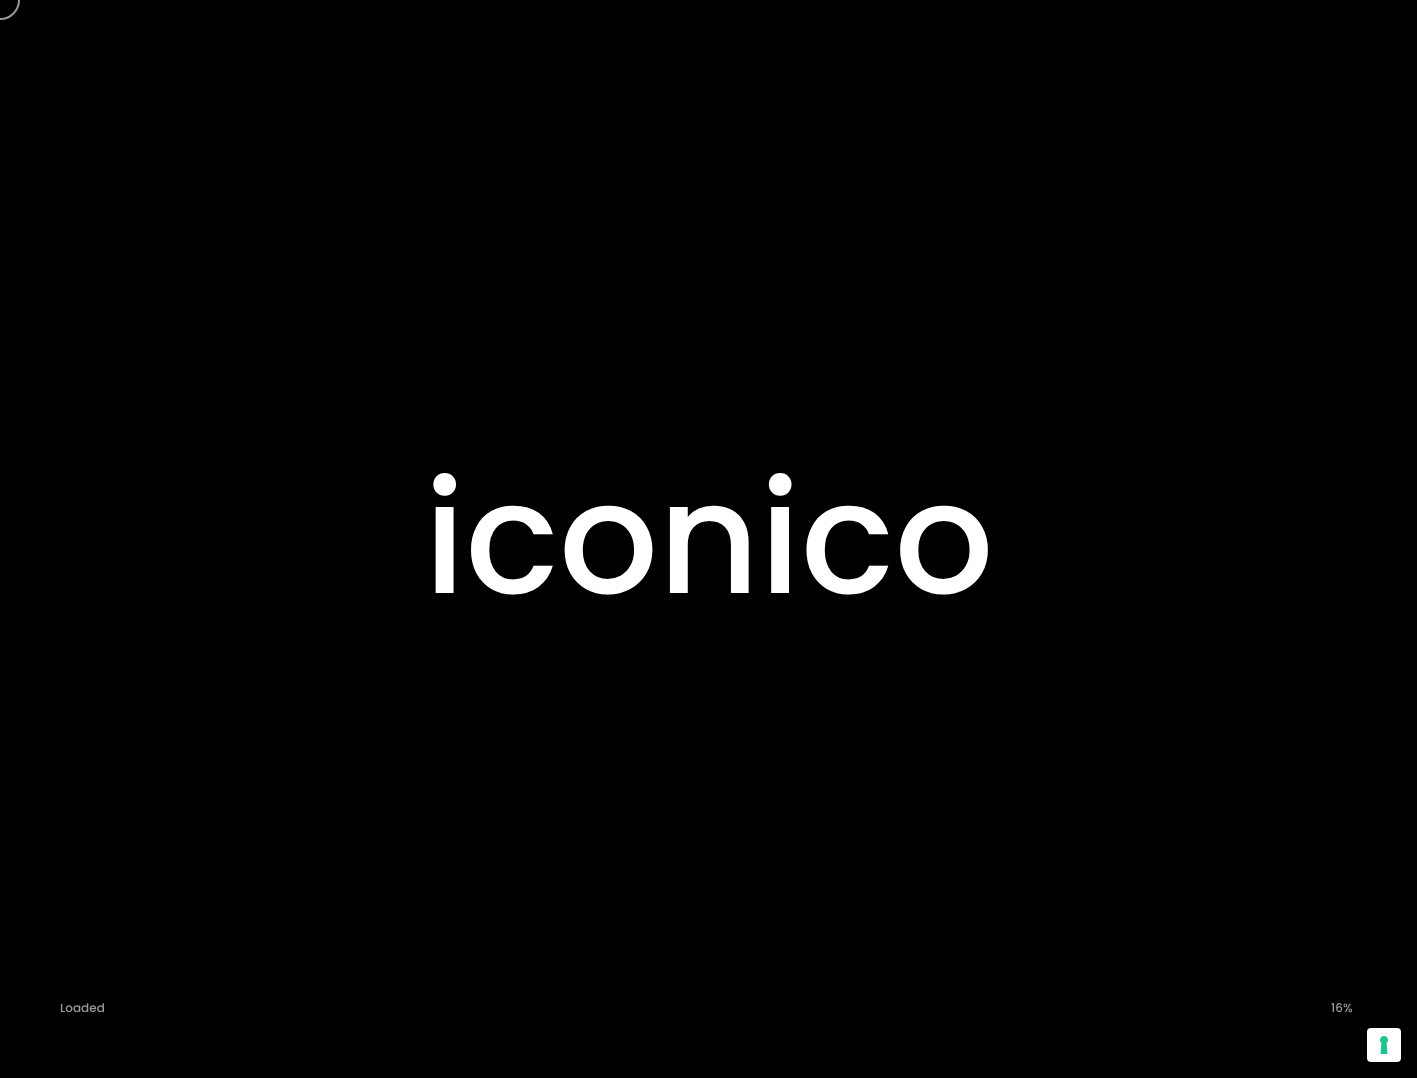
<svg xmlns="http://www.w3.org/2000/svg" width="1417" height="1078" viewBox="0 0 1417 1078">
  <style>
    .t1 { font: 500 156px Poppins; fill: #fff; }
    .t2 { font: 500 12px Poppins; fill: #999; }
  </style>
  <rect width="100%" height="100%" fill="#000"/>
  <circle cx="0" cy="0" r="19" fill="none" stroke="#999" stroke-width="2"/>
  <text x="424" y="593" class="t1">iconico</text>
  <text x="60" y="1012" class="t2">Loaded</text>
  <text x="1331" y="1012" class="t2">16%</text>
  <rect x="1367" y="1028" width="34" height="34" rx="4" fill="#fff"/>
  <image x="1380" y="1036" width="8" height="18" href="images/1.png"/>
</svg>
